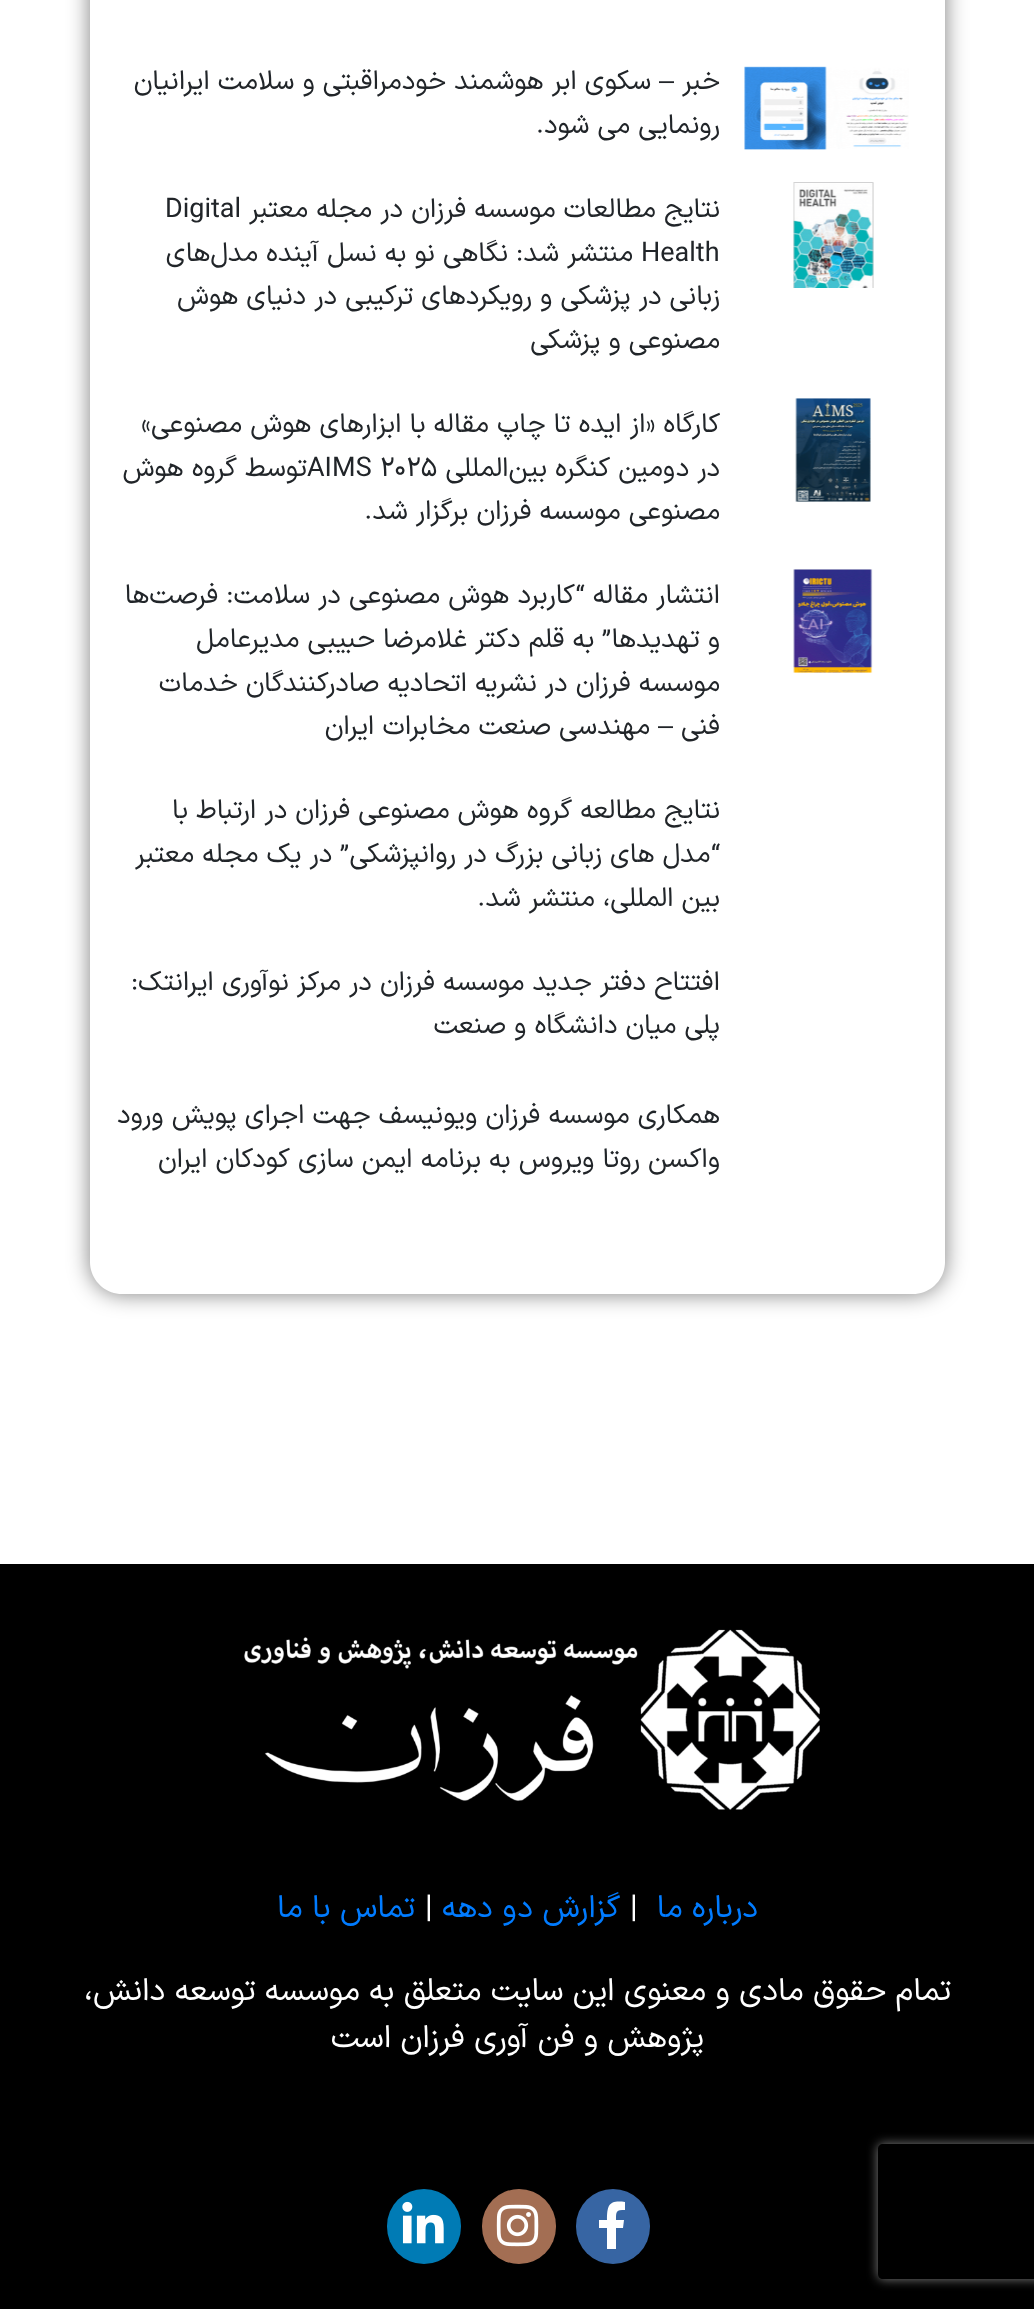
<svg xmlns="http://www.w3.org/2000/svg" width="1034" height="2309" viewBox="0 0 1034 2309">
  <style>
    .t1 { font: 27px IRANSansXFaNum; direction: rtl; fill: #212529; }
    .t2 { font: 27px Liberation Sans; direction: rtl; fill: #212529; }
    .t3 { font: 27px IRANSansXFaNum; fill: #212529; }
    .t4 { font: 31.5px IRANSansXFaNum; direction: rtl; fill: #007bff; }
    .t5 { font: 31.5px IRANSansXFaNum; fill: #fff; }
    .t6 { font: 31.5px IRANSansXFaNum; direction: rtl; fill: #fff; }
  </style>
  <defs>
    <clipPath id="clip1"><path d="M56 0H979V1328H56ZM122-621H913C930.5-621 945-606.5 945-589V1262C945 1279.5 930.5 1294 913 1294H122C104.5 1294 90 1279.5 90 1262V-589C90-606.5 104.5-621 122-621Z" clip-rule="evenodd"/></clipPath>
    <clipPath id="clip2"><path d="M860 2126H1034V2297H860ZM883 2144H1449C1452 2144 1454 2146 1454 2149V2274C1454 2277 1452 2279 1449 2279H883C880 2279 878 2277 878 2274V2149C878 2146 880 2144 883 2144Z" clip-rule="evenodd"/></clipPath>
  </defs>
  <rect width="100%" height="100%" fill="#fff"/>
  <g clip-path="url(#clip1)">
    <rect x="90" y="-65" width="855" height="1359" rx="32" fill="#00000080" filter="blur(11px)"/>
  </g>
  <image x="744" y="66" width="165" height="84" href="images/1.png"/>
  <text x="720" y="89" class="t1">خبر</text>
  <text x="674" y="89" class="t2">–</text>
  <text x="651" y="89" class="t1">سکوی ابر هوشمند خودمراقبتی و سلامت ایرانیان</text>
  <text x="720" y="133" class="t1">رونمایی می شود.</text>
  <image x="793" y="182" width="81" height="106" href="images/2.png"/>
  <text x="720" y="217" class="t1">نتایج مطالعات موسسه فرزان در مجله معتبر</text>
  <text x="165" y="217" class="t3">Digital</text>
  <text x="641" y="261" class="t3">Health</text>
  <text x="633" y="261" class="t1">منتشر شد: نگاهی نو به نسل آینده مدل‌های</text>
  <text x="720" y="304" class="t1">زبانی در پزشکی و رویکردهای ترکیبی در</text>
  <text x="306" y="304" class="t1">دنیای هوش</text>
  <text x="720" y="348" class="t1">مصنوعی و پزشکی</text>
  <image x="795" y="398" width="76" height="104" href="images/3.png"/>
  <text x="720" y="432" class="t1">کارگاه «از ایده تا چاپ مقاله با ابزارهای هوش مصنوعی»</text>
  <text x="720" y="476" class="t1">در دومین کنگره بین‌المللی</text>
  <text x="307" y="476" class="t3">AIMS 2025</text>
  <text x="307" y="476" class="t1">توسط گروه هوش</text>
  <text x="720" y="519" class="t1">مصنوعی موسسه فرزان برگزار شد.</text>
  <image x="793" y="569" width="80" height="104" href="images/4.png"/>
  <text x="720" y="603" class="t1">انتشار مقاله “کاربرد هوش مصنوعی در سلامت: فرصت‌ها</text>
  <text x="720" y="647" class="t1">و تهدید‌ها” به قلم دکتر غلامرضا حبیبی مدیرعامل</text>
  <text x="720" y="691" class="t1">موسسه فرزان در نشریه اتحادیه صادرکنندگان خدمات</text>
  <text x="720" y="734" class="t1">فنی</text>
  <text x="673" y="734" class="t2">–</text>
  <text x="650" y="734" class="t1">مهندسی صنعت مخابرات ایران</text>
  <text x="720" y="818" class="t1">نتایج مطالعه گروه هوش مصنوعی فرزان در ارتباط با</text>
  <text x="720" y="862" class="t1">“مدل های زبانی بزرگ در روانپزشکی” در یک مجله معتبر</text>
  <text x="720" y="906" class="t1">بین المللی، منتشر شد.</text>
  <text x="720" y="990" class="t1">افتتاح دفتر جدید موسسه فرزان در مرکز نوآوری ایرانتک:</text>
  <text x="720" y="1033" class="t1">پلی میان دانشگاه و صنعت</text>
  <text x="720" y="1123" class="t1">همکاری موسسه فرزان ویونیسف جهت اجرای پویش ورود</text>
  <text x="720" y="1167" class="t1">واکسن روتا ویروس به برنامه ایمن سازی کودکان ایران</text>
  <rect x="0" y="1564" width="1034" height="745" fill="#000"/>
  <image x="244" y="1629" width="576" height="181" href="images/5.png"/>
  <text x="758" y="1917" class="t4">درباره ما</text>
  <text x="630" y="1917" class="t5">|</text>
  <text x="620" y="1917" class="t4">گزارش دو دهه</text>
  <text x="425" y="1917" class="t5">|</text>
  <text x="415" y="1917" class="t4">تماس با ما</text>
  <text x="951" y="2000" class="t6">تمام حقوق مادی و معنوی این سایت متعلق به موسسه توسعه دانش،</text>
  <text x="704" y="2047" class="t6">پژوهش و فن آوری فرزان است</text>
  <rect x="576" y="2189" width="74" height="75" rx="37" fill="#3765a3"/>
  <path d="M623 2228H616V2249H607V2228H599V2220H607C607 2205 609 2200 625 2202V2210C616 2210 616 2211 616 2220H624Z" fill="#fff"/>
  <rect x="482" y="2189" width="74" height="75" rx="37" fill="#a36e53"/>
  <image x="496" y="2204" width="43" height="43" href="images/6.png"/>
  <rect x="387" y="2189" width="74" height="75" rx="37" fill="#007bb5"/>
  <image x="402" y="2201" width="42" height="43" href="images/7.png"/>
  <g clip-path="url(#clip2)">
    <rect x="878" y="2144" width="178" height="135" rx="5" fill="#808080" filter="blur(5.5px)"/>
  </g>
</svg>
